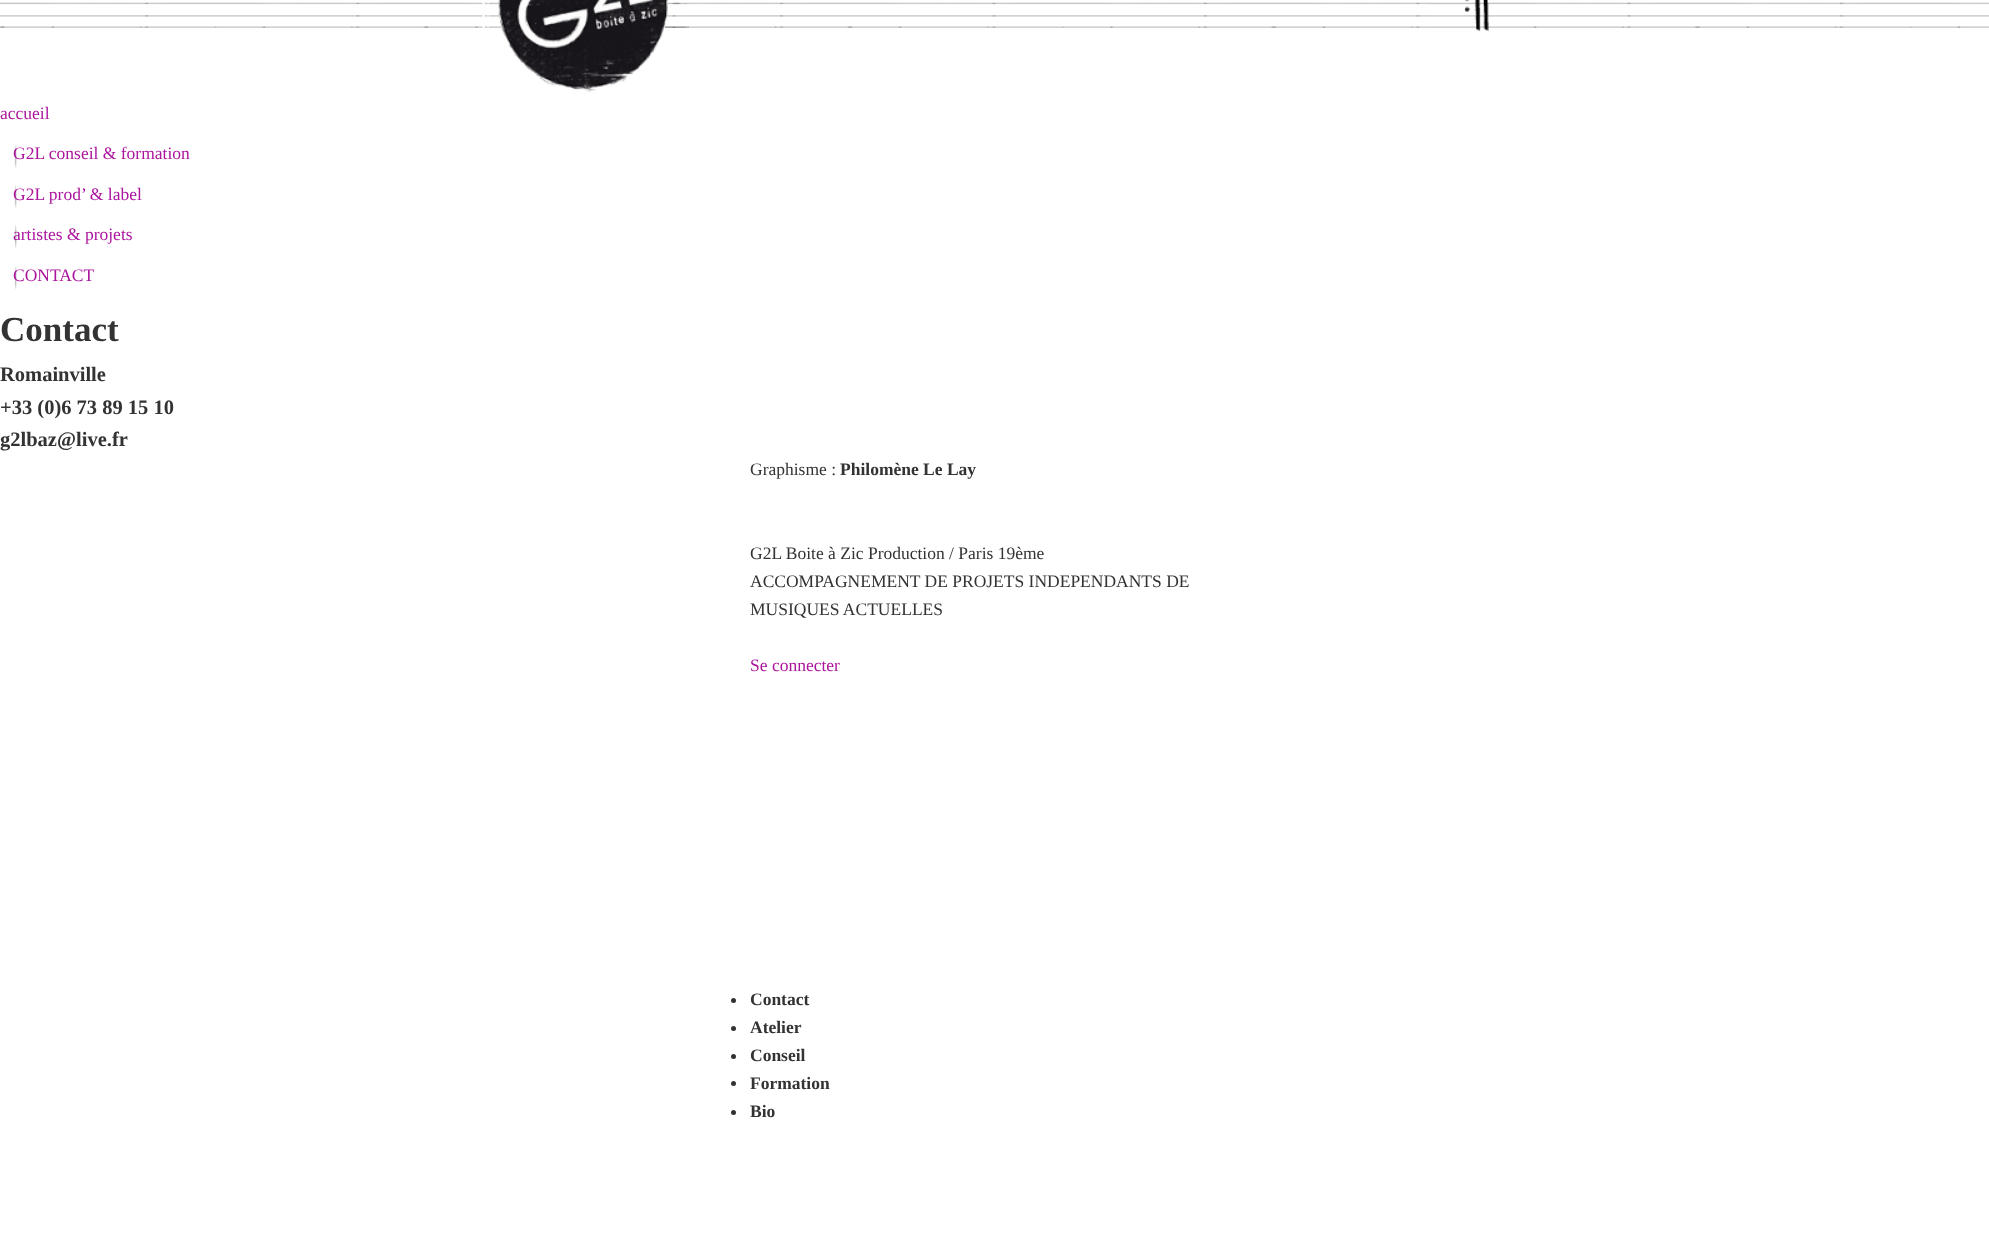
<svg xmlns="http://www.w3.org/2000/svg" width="1989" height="1245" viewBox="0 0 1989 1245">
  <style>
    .t1 { font: 17.5px Liberation Serif; fill: #ab159e; }
    .t2 { font: bold 35px Liberation Serif; fill: #333; }
    .t3 { font: bold 20.5px Liberation Serif; fill: #333; }
    .t4 { font: 17.5px Liberation Serif; fill: #333; }
    .t5 { font: bold 17.5px Liberation Serif; fill: #333; }
  </style>
  <rect width="100%" height="100%" fill="#fff"/>
  <image x="0" y="2" width="1989" height="26" href="images/1.png"/>
  <image x="482" y="0" width="205" height="92" href="images/2.png"/>
  <image x="1430" y="0" width="59" height="32" href="images/3.png"/>
  <text x="0" y="119" class="t1">accueil</text>
  <image x="14" y="145" width="3" height="23" href="images/4.png"/>
  <text x="13" y="159" class="t1">G2L conseil &amp; formation</text>
  <image x="14" y="185" width="3" height="23" href="images/5.png"/>
  <text x="13" y="200" class="t1">G2L prod’ &amp; label</text>
  <image x="14" y="225" width="3" height="23" href="images/4.png"/>
  <text x="13" y="240" class="t1">artistes &amp; projets</text>
  <image x="14" y="266" width="3" height="23" href="images/6.png"/>
  <text x="13" y="281" class="t1">CONTACT</text>
  <text x="0" y="341" class="t2">Contact</text>
  <text x="0" y="381" class="t3">Romainville</text>
  <text x="0" y="414" class="t3">+33 (0)6 73 89 15 10</text>
  <text x="0" y="446" class="t3">g2lbaz@live.fr</text>
  <text x="750" y="475" class="t4">Graphisme :</text>
  <text x="840" y="475" class="t5">Philomène Le Lay</text>
  <text x="750" y="559" class="t4">G2L Boite à Zic Production / Paris 19ème</text>
  <text x="750" y="587" class="t4">ACCOMPAGNEMENT DE PROJETS INDEPENDANTS DE</text>
  <text x="750" y="615" class="t4">MUSIQUES ACTUELLES</text>
  <text x="750" y="671" class="t1">Se connecter</text>
  <circle cx="733.5" cy="1000.5" r="2.5" fill="#333"/>
  <text x="750" y="1005" class="t5">Contact</text>
  <circle cx="733.5" cy="1028.5" r="2.5" fill="#333"/>
  <text x="750" y="1033" class="t5">Atelier</text>
  <circle cx="733.5" cy="1056.5" r="2.5" fill="#333"/>
  <text x="750" y="1061" class="t5">Conseil</text>
  <circle cx="733.5" cy="1083.5" r="2.5" fill="#333"/>
  <text x="750" y="1089" class="t5">Formation</text>
  <circle cx="733.5" cy="1112.5" r="2.5" fill="#333"/>
  <text x="750" y="1117" class="t5">Bio</text>
</svg>
